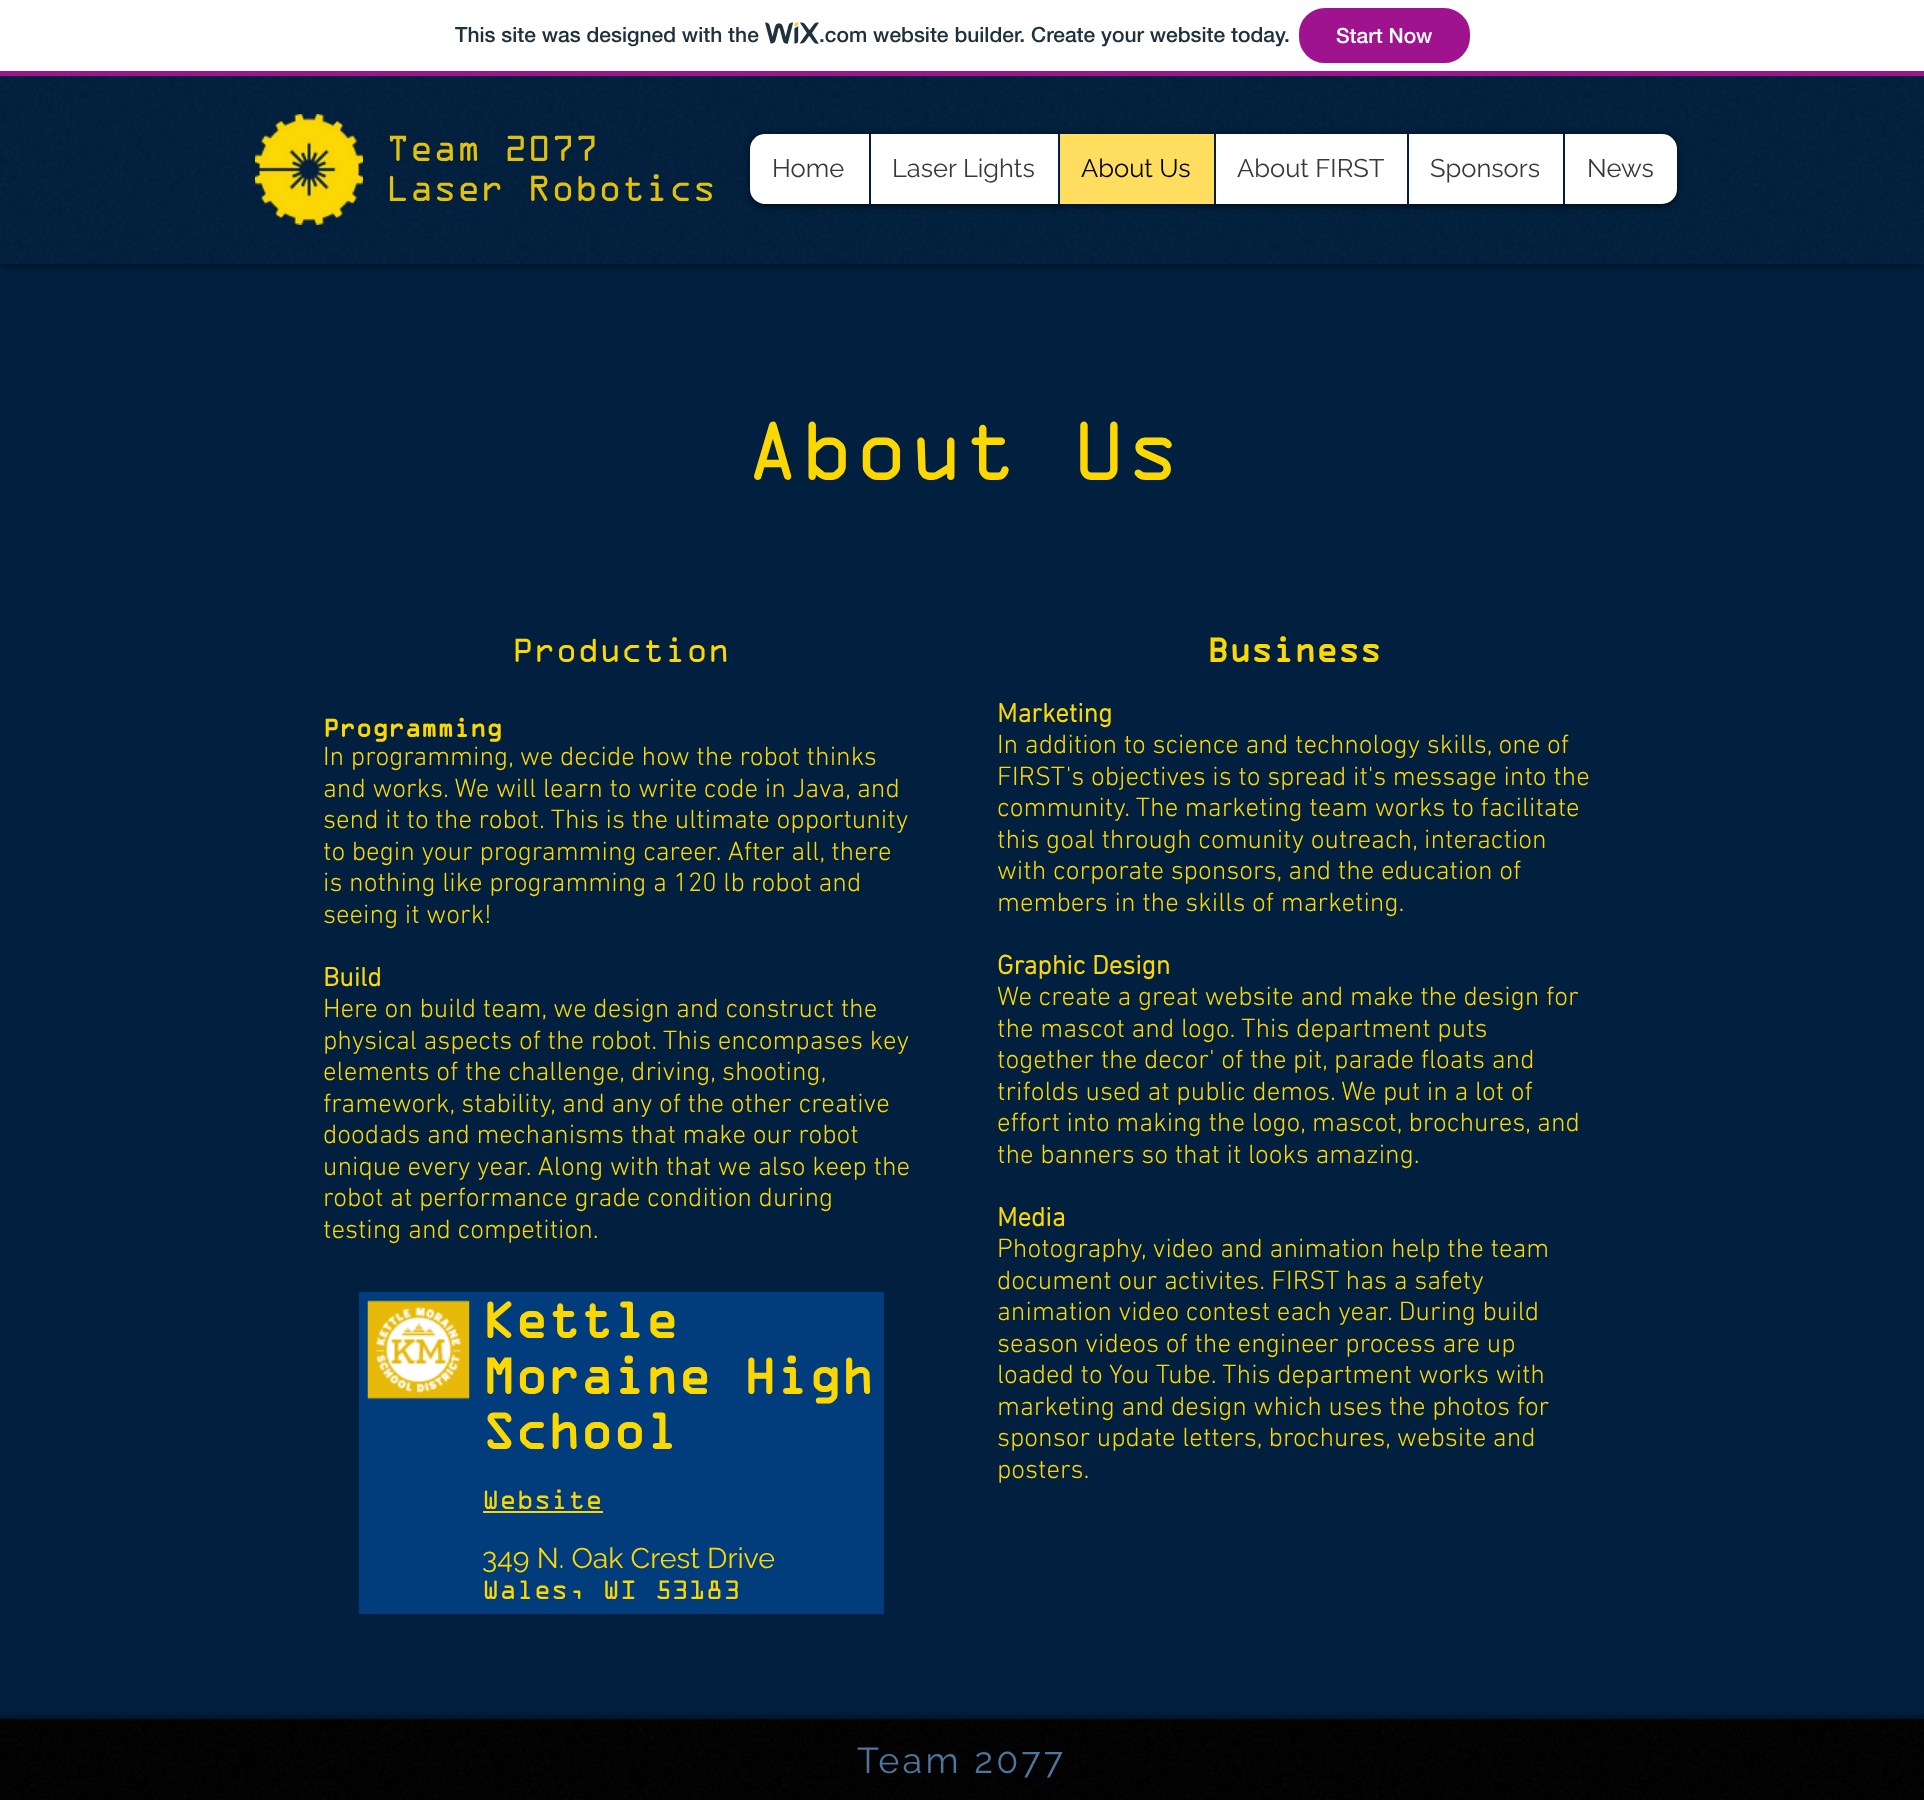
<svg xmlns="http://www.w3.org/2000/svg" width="1924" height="1800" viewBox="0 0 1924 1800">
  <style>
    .t1 { font: 500 21px 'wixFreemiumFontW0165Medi'; fill: #20303c; }
    .t2 { font: 500 21px 'wixFreemiumFontW0165Medi'; fill: #fff; }
    .t3 { font: 39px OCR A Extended; fill: #e1c10b; }
    .t4 { font: 25.5px Raleway; fill: #383838; }
    .t5 { font: 25.5px Raleway; fill: #000; }
    .t6 { font: 90px OCR A Extended; fill: #fbd704; }
    .t7 { font: 36px OCR A Extended; fill: #fbd704; }
    .t8 { font: bold 27px OCR A Extended; fill: #fbd704; }
    .t9 { font: 300 27px 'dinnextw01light'; fill: #fbd704; }
    .t10 { font: bold 27px 'dinnextw01light'; fill: #fbd704; }
    .t11 { font: bold 36px OCR A Extended; fill: #fbd704; }
    .t12 { font: bold 54px OCR A Extended; fill: #fbd704; }
    .t13 { font: 28.5px OCR A Extended; fill: #fbd704; }
    .t14 { font: 28.5px Raleway; fill: #fbd704; }
    .t15 { font: 36px Raleway; letter-spacing: 3.25px; fill: #4f759d; }
  </style>
  <defs>
    <clipPath id="clip1"><rect x="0" y="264" width="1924" height="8"/></clipPath>
  </defs>
  <rect width="100%" height="100%" fill="#011f3e"/>
  <g clip-path="url(#clip1)">
    <rect x="0" y="75" width="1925" height="189" fill="#000000b3" filter="blur(4px)"/>
  </g>
  <rect x="0" y="0" width="1924" height="71" fill="#fff"/>
  <rect x="0" y="71" width="1924" height="5" fill="#a0138e"/>
  <text x="455" y="42" class="t1">This site was designed with the</text>
  <image x="765" y="22" width="54" height="22" href="images/1.png"/>
  <text x="819" y="42" class="t1">.com website builder. Create your website today.</text>
  <rect x="1300" y="9" width="169" height="53" rx="25" fill="#a0138e" stroke="#a0138e" stroke-width="2"/>
  <text x="1336" y="43" class="t2">Start Now</text>
  <image x="0" y="76" width="1924" height="188" href="images/2.png"/>
  <image x="255" y="114" width="108" height="111" href="images/3.png"/>
  <text x="386" y="161" class="t3">Team 2077</text>
  <text x="386" y="201" class="t3">Laser Robotics</text>
  <rect x="750" y="135" width="927" height="71" rx="15" fill="#00000099" filter="blur(3px)"/>
  <rect x="750" y="134" width="927" height="70" rx="15" fill="#fff"/>
  <text x="772" y="177" class="t4">Home</text>
  <rect x="869" y="134" width="2" height="70" fill="#011f3e"/>
  <text x="892" y="177" class="t4">Laser Lights</text>
  <rect x="1060" y="134" width="154" height="70" fill="#ffde5f"/>
  <rect x="1058" y="134" width="2" height="70" fill="#011f3e"/>
  <text x="1081" y="177" class="t5">About Us</text>
  <rect x="1214" y="134" width="2" height="70" fill="#011f3e"/>
  <text x="1237" y="177" class="t4">About FIRST</text>
  <rect x="1407" y="134" width="2" height="70" fill="#011f3e"/>
  <text x="1430" y="177" class="t4">Sponsors</text>
  <rect x="1563" y="134" width="2" height="70" fill="#011f3e"/>
  <text x="1587" y="177" class="t4">News</text>
  <text x="745" y="480" class="t6">About Us</text>
  <text x="512" y="662" class="t7">Production</text>
  <text x="323" y="737" class="t8">Programming</text>
  <text x="323" y="765" class="t9">In programming, we decide how the robot thinks</text>
  <text x="323" y="797" class="t9">and works. We will learn to write code in Java, and</text>
  <text x="323" y="828" class="t9">send it to the robot. This is the ultimate opportunity</text>
  <text x="323" y="860" class="t9">to begin your programming career. After all, there</text>
  <text x="323" y="891" class="t9">is nothing like programming a 120 lb robot and</text>
  <text x="323" y="923" class="t9">seeing it work!</text>
  <text x="323" y="986" class="t10">Build</text>
  <text x="323" y="1017" class="t9">Here on build team, we design and construct the</text>
  <text x="323" y="1049" class="t9">physical aspects of the robot. This encompases key</text>
  <text x="323" y="1080" class="t9">elements of the challenge, driving, shooting,</text>
  <text x="323" y="1112" class="t9">framework, stability, and any of the other creative</text>
  <text x="323" y="1143" class="t9">doodads and mechanisms that make our robot</text>
  <text x="323" y="1175" class="t9">unique every year. Along with that we also keep the</text>
  <text x="323" y="1206" class="t9">robot at performance grade condition during</text>
  <text x="323" y="1238" class="t9">testing and competition.</text>
  <text x="1207" y="662" class="t11">Business</text>
  <text x="997" y="722" class="t10">Marketing</text>
  <text x="997" y="753" class="t9">In addition to science and technology skills, one of</text>
  <text x="997" y="785" class="t9">FIRST's objectives is to spread it's message into the</text>
  <text x="997" y="816" class="t9">community. The marketing team works to facilitate</text>
  <text x="997" y="848" class="t9">this goal through comunity outreach, interaction</text>
  <text x="997" y="879" class="t9">with corporate sponsors, and the education of</text>
  <text x="997" y="911" class="t9">members in the skills of marketing.</text>
  <text x="997" y="974" class="t10">Graphic Design</text>
  <text x="997" y="1005" class="t9">We create a great website and make the design for</text>
  <text x="997" y="1037" class="t9">the mascot and logo. This department puts</text>
  <text x="997" y="1068" class="t9">together the decor' of the pit, parade floats and</text>
  <text x="997" y="1100" class="t9">trifolds used at public demos. We put in a lot of</text>
  <text x="997" y="1131" class="t9">effort into making the logo, mascot, brochures, and</text>
  <text x="997" y="1163" class="t9">the banners so that it looks amazing.</text>
  <text x="997" y="1226" class="t10">Media</text>
  <text x="997" y="1257" class="t9">Photography, video and animation help the team</text>
  <text x="997" y="1289" class="t9">document our activites. FIRST has a safety</text>
  <text x="997" y="1320" class="t9">animation video contest each year. During build</text>
  <text x="997" y="1352" class="t9">season videos of the engineer process are up</text>
  <text x="997" y="1383" class="t9">loaded to You Tube. This department works with</text>
  <text x="997" y="1415" class="t9">marketing and design which uses the photos for</text>
  <text x="997" y="1446" class="t9">sponsor update letters, brochures, website and</text>
  <text x="997" y="1478" class="t9">posters.</text>
  <rect x="359" y="1292" width="525" height="322" fill="#013d7c"/>
  <image x="367" y="1300" width="103" height="100" href="images/4.png"/>
  <text x="482" y="1338" class="t12">Kettle</text>
  <text x="482" y="1394" class="t12">Moraine High</text>
  <text x="482" y="1449" class="t12">School</text>
  <text x="482" y="1509" class="t13">Website</text>
  <rect x="483" y="1511" width="120" height="2" fill="#fbd704"/>
  <text x="482" y="1568" class="t14">349 N. Oak Crest Drive</text>
  <text x="482" y="1599" class="t13">Wales, WI 53183</text>
  <rect x="0" y="1719" width="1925" height="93" fill="#000000b3" filter="blur(4px)"/>
  <rect x="0" y="1719" width="1924" height="81" fill="#000"/>
  <image x="0" y="1719" width="1924" height="81" href="images/5.png"/>
  <text x="857" y="1773" class="t15">Team 2077</text>
</svg>
